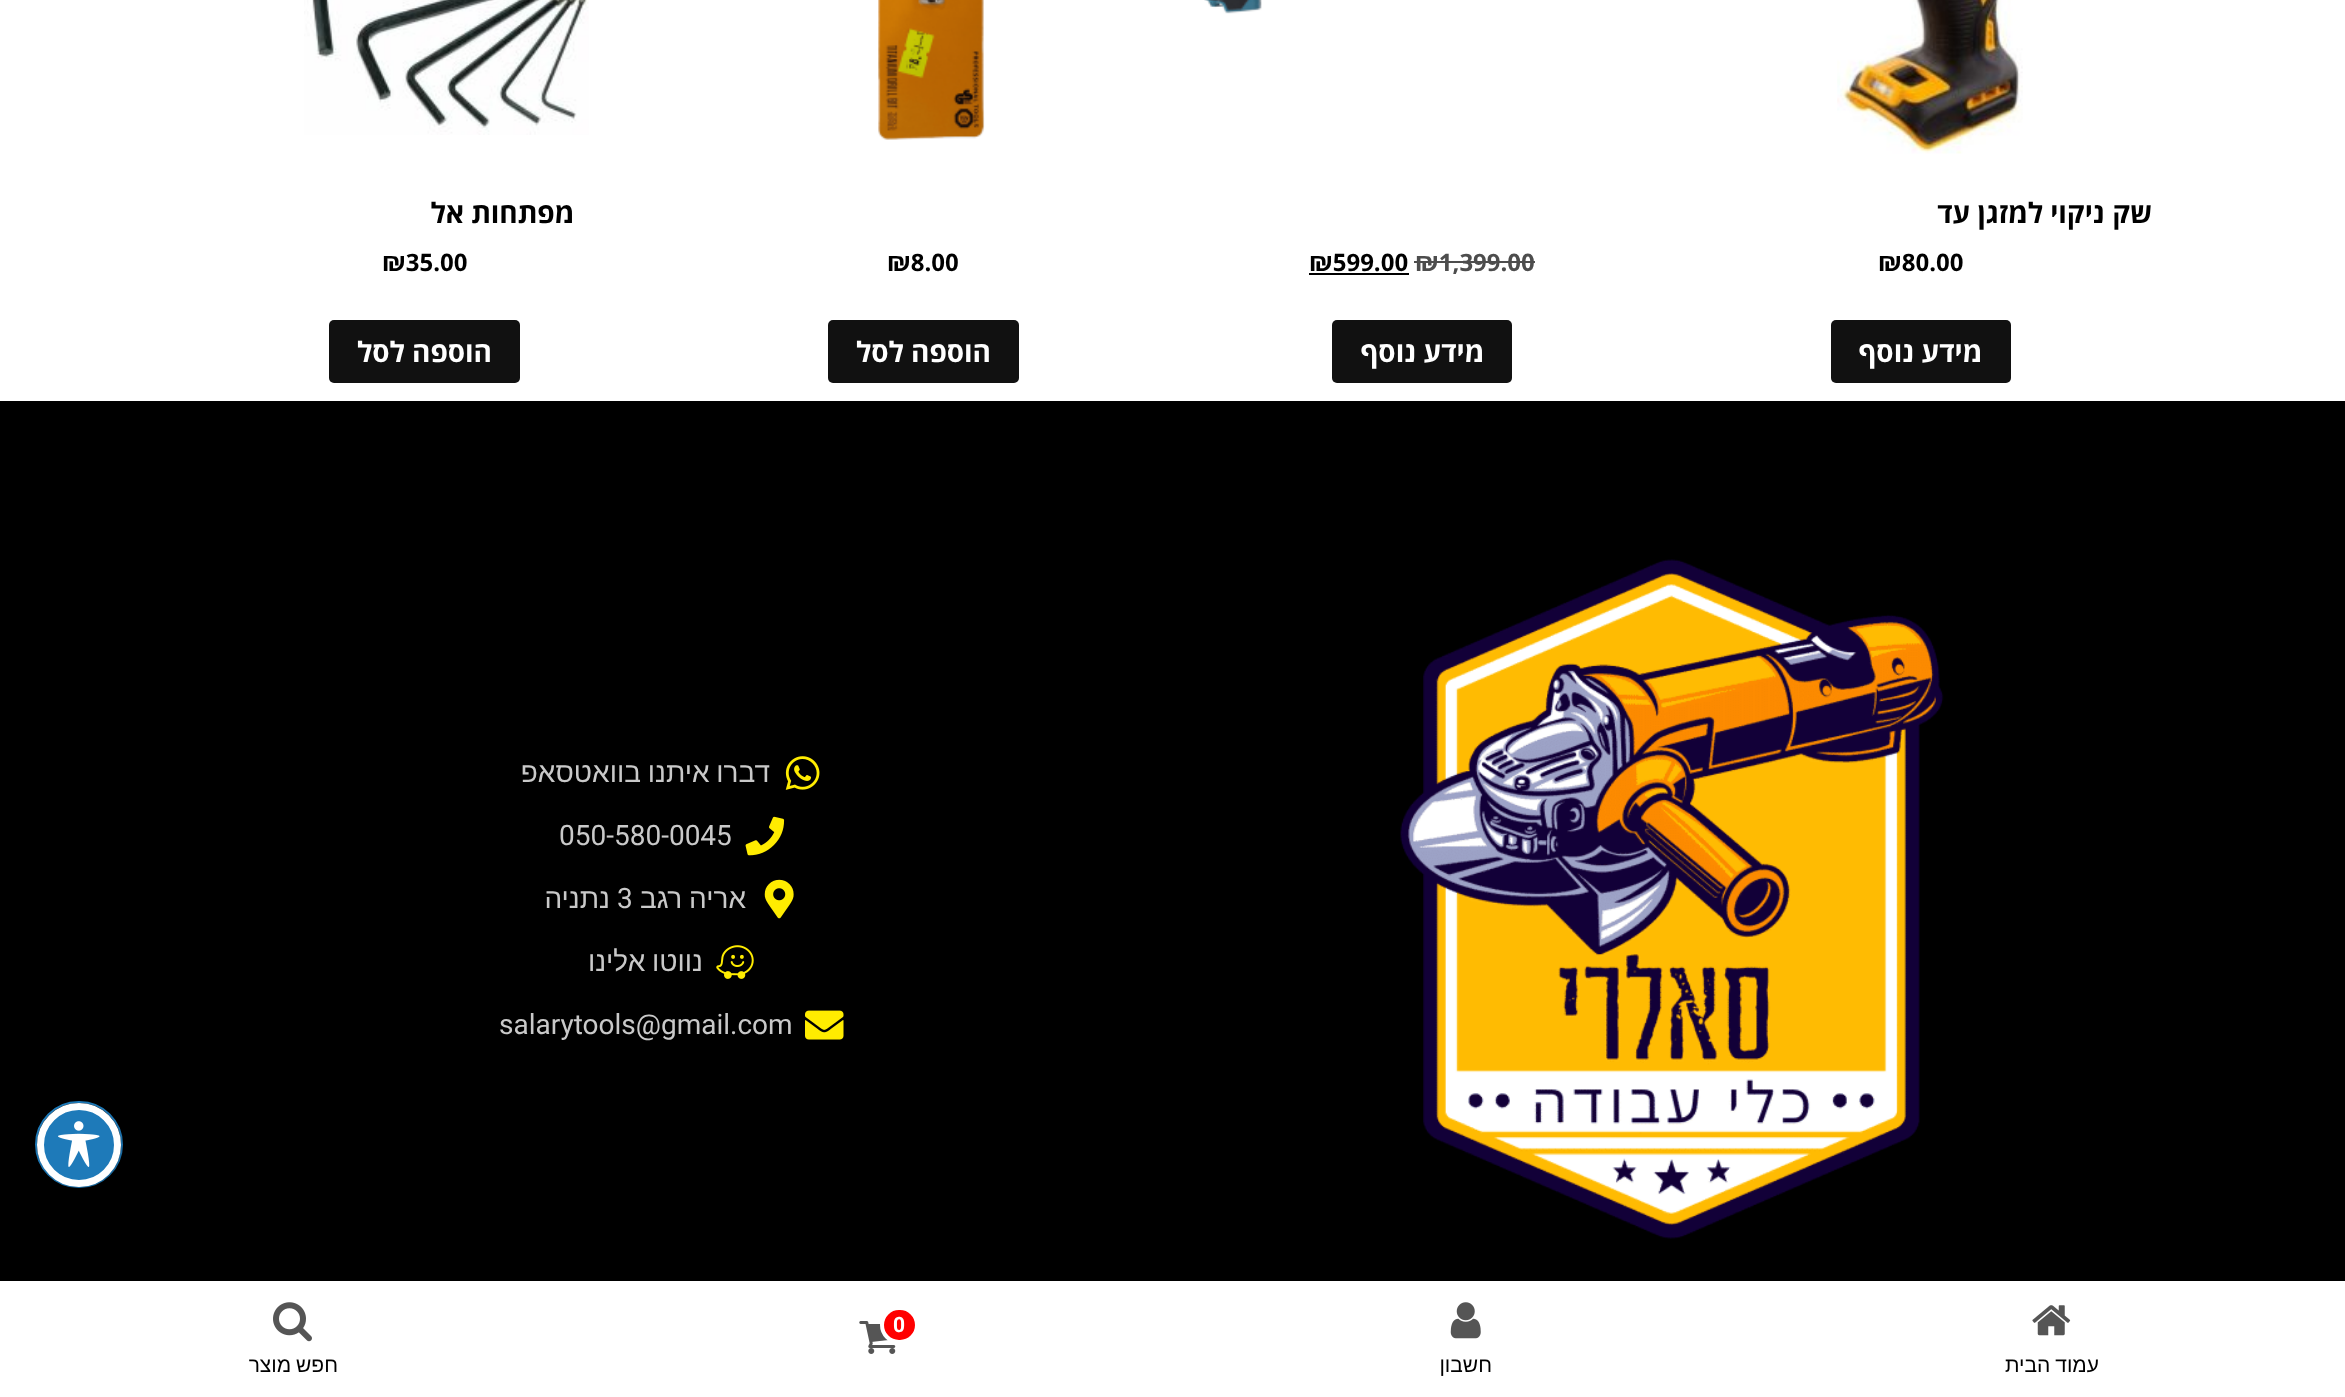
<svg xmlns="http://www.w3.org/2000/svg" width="2345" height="1397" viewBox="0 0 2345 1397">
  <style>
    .t1 { font: bold 28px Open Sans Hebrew; direction: rtl; fill: #000; }
    .t2 { font: bold 24px Open Sans Hebrew; fill: #000; }
    .t3 { font: bold 28px Open Sans Hebrew; direction: rtl; fill: #fff; }
    .t4 { font: bold 24px Open Sans Hebrew; fill: #4d4d4d; }
    .t5 { font: 28px Liberation Sans; direction: rtl; fill: #c9c9c9; }
    .t6 { font: 28px Roboto; fill: #c9c9c9; }
    .t7 { font: bold 21px Roboto; fill: #fff; }
    .t8 { font: 21px Liberation Sans; direction: rtl; fill: #000; }
  </style>
  <defs>
    <clipPath id="clip1"><rect x="429" y="182" width="227" height="63"/></clipPath>
  </defs>
  <rect width="100%" height="100%" fill="#fff"/>
  <image x="1837" y="0" width="186" height="154" href="images/1.png"/>
  <text x="2152" y="223" class="t1">שק ניקוי למזגן עד</text>
  <text x="1878" y="271" class="t2">₪80.00</text>
  <rect x="1831" y="320" width="180" height="63" rx="5" fill="#111"/>
  <text x="1982" y="362" class="t3">מידע נוסף</text>
  <image x="1204" y="0" width="58" height="14" href="images/2.png"/>
  <text x="1415" y="271" class="t4">₪1,399.00</text>
  <rect x="1414" y="261" width="121" height="2" fill="#4d4d4d"/>
  <text x="1309" y="271" class="t2">₪599.00</text>
  <rect x="1309" y="273" width="100" height="2" fill="#000"/>
  <rect x="1332" y="320" width="180" height="63" rx="5" fill="#111"/>
  <text x="1484" y="362" class="t3">מידע נוסף</text>
  <image x="878" y="0" width="107" height="140" href="images/3.png"/>
  <text x="887" y="271" class="t2">₪8.00</text>
  <rect x="828" y="320" width="191" height="63" rx="5" fill="#111"/>
  <text x="991" y="362" class="t3">הוספה לסל</text>
  <image x="304" y="0" width="285" height="135" href="images/4.png"/>
  <g clip-path="url(#clip1)">
    <text x="574" y="223" class="t1">מפתחות אלן</text>
  </g>
  <text x="382" y="271" class="t2">₪35.00</text>
  <rect x="329" y="320" width="191" height="63" rx="5" fill="#111"/>
  <text x="492" y="362" class="t3">הוספה לסל</text>
  <rect x="0" y="401" width="2345" height="880" fill="#000"/>
  <image x="1400" y="559" width="544" height="680" href="images/5.png"/>
  <image x="785" y="756" width="35" height="34" href="images/6.png"/>
  <text x="770" y="782" word-spacing="-1" class="t5">דברו איתנו בוואטסאפ</text>
  <image x="745" y="816" width="40" height="40" href="images/7.png"/>
  <text x="559" y="845" class="t6">050-580-0045</text>
  <image x="764" y="879" width="30" height="40" href="images/8.png"/>
  <text x="746" y="908" word-spacing="-1" class="t5">אריה רגב</text>
  <text x="617" y="908" class="t6">3</text>
  <text x="610" y="908" class="t5">נתניה</text>
  <image x="716" y="945" width="38" height="34" href="images/9.png"/>
  <text x="703" y="971" word-spacing="-1" class="t5">נווטו אלינו</text>
  <image x="805" y="1010" width="39" height="30" href="images/10.png"/>
  <text x="499" y="1034" class="t6">salarytools@gmail.com</text>
  <rect x="36" y="1102" width="86" height="85" rx="42.5" fill="none" stroke="#1e7ab9" stroke-width="2"/>
  <rect x="47" y="1117" width="84" height="84" rx="42" fill="#00000033" filter="blur(14px)"/>
  <circle cx="79" cy="1145" r="38.5" fill="#1e7ab9" stroke="#fff" stroke-width="7"/>
  <image x="58" y="1121" width="42" height="46" href="images/11.png"/>
  <image x="859" y="1321" width="37" height="33" href="images/12.png"/>
  <rect x="882" y="1308" width="35" height="34" rx="17" fill="#f00" stroke="#fff" stroke-width="4"/>
  <text x="893" y="1332" class="t7">0</text>
  <image x="2032" y="1305" width="39" height="31" href="images/13.png"/>
  <text x="2099" y="1372" word-spacing="-1" class="t8">עמוד הבית</text>
  <image x="1450" y="1302" width="31" height="37" href="images/14.png"/>
  <text x="1492" y="1372" class="t8">חשבון</text>
  <image x="273" y="1302" width="39" height="40" href="images/15.png"/>
  <text x="338" y="1372" word-spacing="-1" class="t8">חפש מוצר</text>
</svg>
